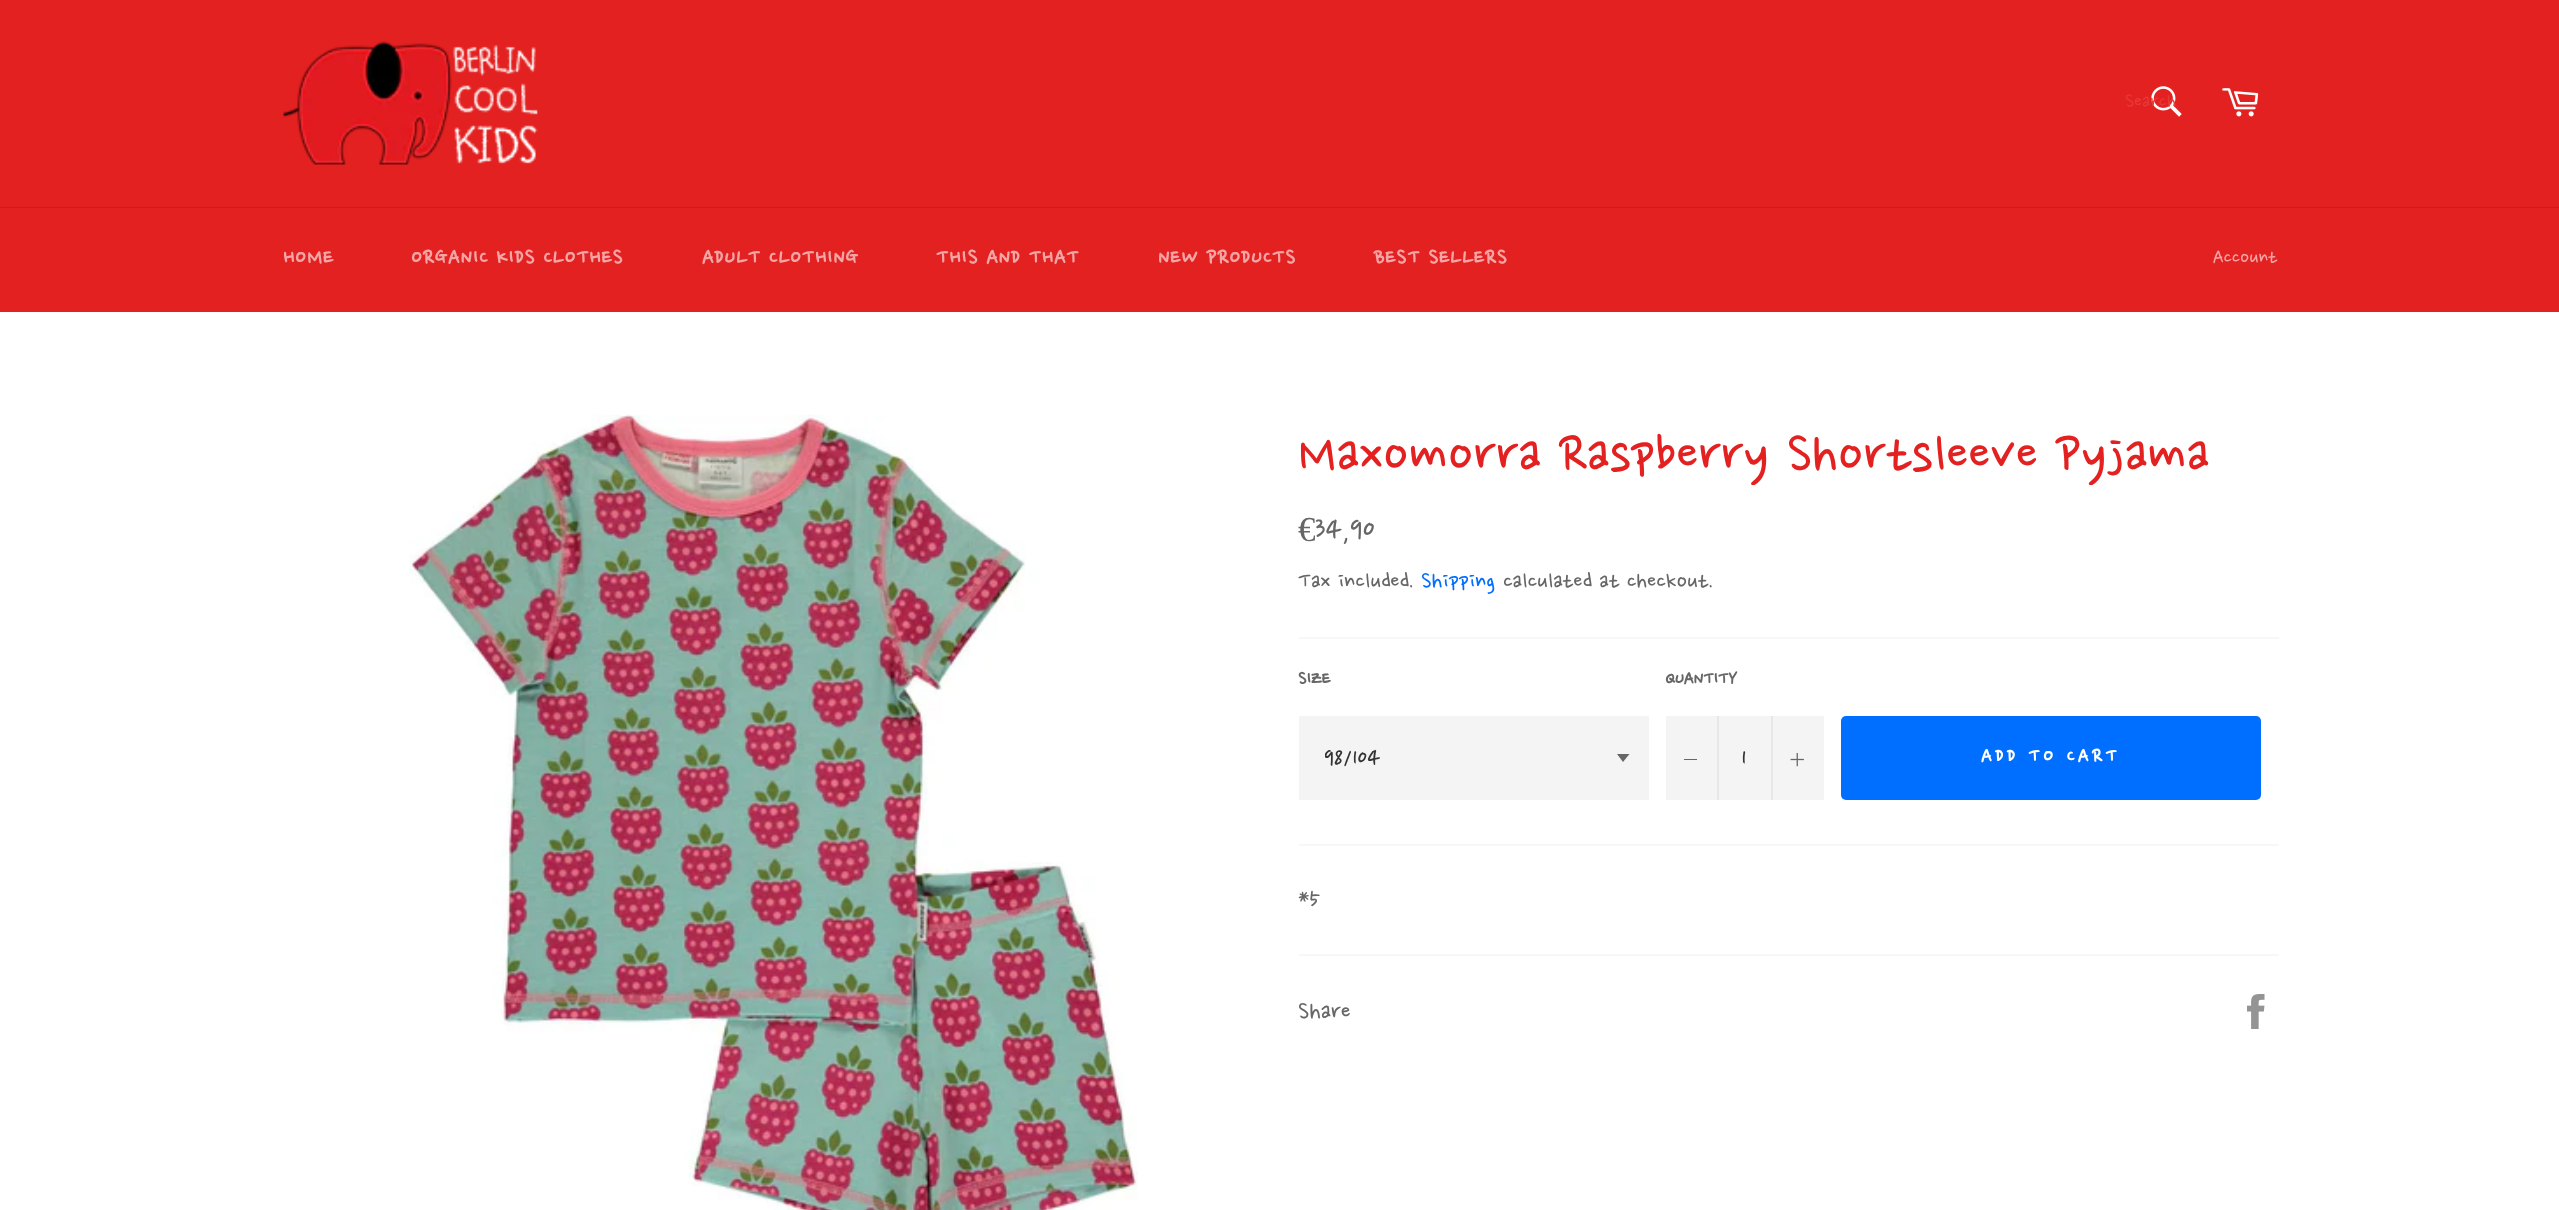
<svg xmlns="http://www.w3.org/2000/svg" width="2559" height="1210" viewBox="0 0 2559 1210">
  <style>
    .t1 { font: 22.75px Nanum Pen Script; fill: #e73838; }
    .t2 { font: bold 24.5px Nanum Pen Script; letter-spacing: 1.05px; fill: #f4a6a6; }
    .t3 { font: 22.75px Nanum Pen Script; fill: #f4a6a6; }
    .t4 { font: 63px Nanum Pen Script; fill: #e42121; }
    .t5 { font: 35px Liberation Serif; fill: #666; }
    .t6 { font: 35px Nanum Pen Script; fill: #666; }
    .t7 { font: 26.25px Nanum Pen Script; fill: #666; }
    .t8 { font: 26.25px Nanum Pen Script; fill: #006eff; }
    .t9 { font: bold 21px Nanum Pen Script; fill: #666; }
    .t10 { font: 28px Nanum Pen Script; fill: #333; }
    .t11 { font: bold 22.75px Nanum Pen Script; letter-spacing: 3.5px; fill: #fff; }
    .t12 { font: 28px Nanum Pen Script; fill: #666; }
  </style>
  <defs>
    <clipPath id="clip1"><rect x="1325" y="739" width="275" height="38"/></clipPath>
  </defs>
  <rect width="100%" height="100%" fill="#e42121"/>
  <image x="283" y="41" width="255" height="124" href="images/1.png"/>
  <image x="2151" y="86" width="31" height="31" href="images/2.png"/>
  <text x="2125" y="109" class="t1">Search</text>
  <image x="2222" y="88" width="37" height="29" href="images/3.png"/>
  <rect x="0" y="207" width="2559" height="1" fill="#d21a1a"/>
  <text x="283" y="266" class="t2">HOME</text>
  <text x="411" y="266" class="t2">ORGANIC KIDS CLOTHES</text>
  <text x="702" y="266" class="t2">ADULT CLOTHING</text>
  <text x="936" y="266" class="t2">THIS AND THAT</text>
  <text x="1158" y="266" class="t2">NEW PRODUCTS</text>
  <text x="1374" y="266" class="t2">BEST SELLERS</text>
  <text x="2213" y="265" class="t3">Account</text>
  <rect x="0" y="312" width="2559" height="898" fill="#fff"/>
  <image x="409" y="414" width="729" height="796" href="images/4.png"/>
  <text x="1298" y="476" class="t4">Maxomorra Raspberry Shortsleeve Pyjama</text>
  <text x="1298" y="541" class="t5">€</text>
  <text x="1315" y="541" class="t6">34,90</text>
  <text x="1298" y="590" class="t7">Tax included.</text>
  <text x="1421" y="590" class="t8">Shipping</text>
  <text x="1503" y="590" class="t7">calculated at checkout.</text>
  <rect x="1299" y="637" width="980" height="2" fill="#f7f7f7"/>
  <text x="1298" y="686" class="t9">SIZE</text>
  <rect x="1299" y="716" width="350" height="84" fill="#f4f4f4"/>
  <path d="M1617 754L1623 762L1629.5 754Z" fill="#666"/>
  <g clip-path="url(#clip1)">
    <text x="1324" y="767" class="t10">98/104</text>
  </g>
  <text x="1665" y="686" class="t9">QUANTITY</text>
  <rect x="1666" y="716" width="158" height="84" fill="#f4f4f4"/>
  <rect x="1717" y="716" width="2" height="84" fill="#e7e7e7"/>
  <rect x="1684" y="759" width="13" height="1" fill="#666"/>
  <text x="1741" y="767" class="t10">1</text>
  <rect x="1771" y="716" width="2" height="84" fill="#e7e7e7"/>
  <image x="1790" y="753" width="14" height="14" href="images/5.png"/>
  <rect x="1841" y="716" width="420" height="84" rx="5" fill="#006eff"/>
  <text x="1981" y="764" class="t11">ADD TO CART</text>
  <rect x="1299" y="844" width="980" height="2" fill="#f7f7f7"/>
  <text x="1298" y="909" class="t12">*5</text>
  <rect x="1299" y="954" width="980" height="2" fill="#f7f7f7"/>
  <text x="1298" y="1021" class="t12">Share</text>
  <image x="2247" y="994" width="18" height="35" href="images/6.png"/>
</svg>
